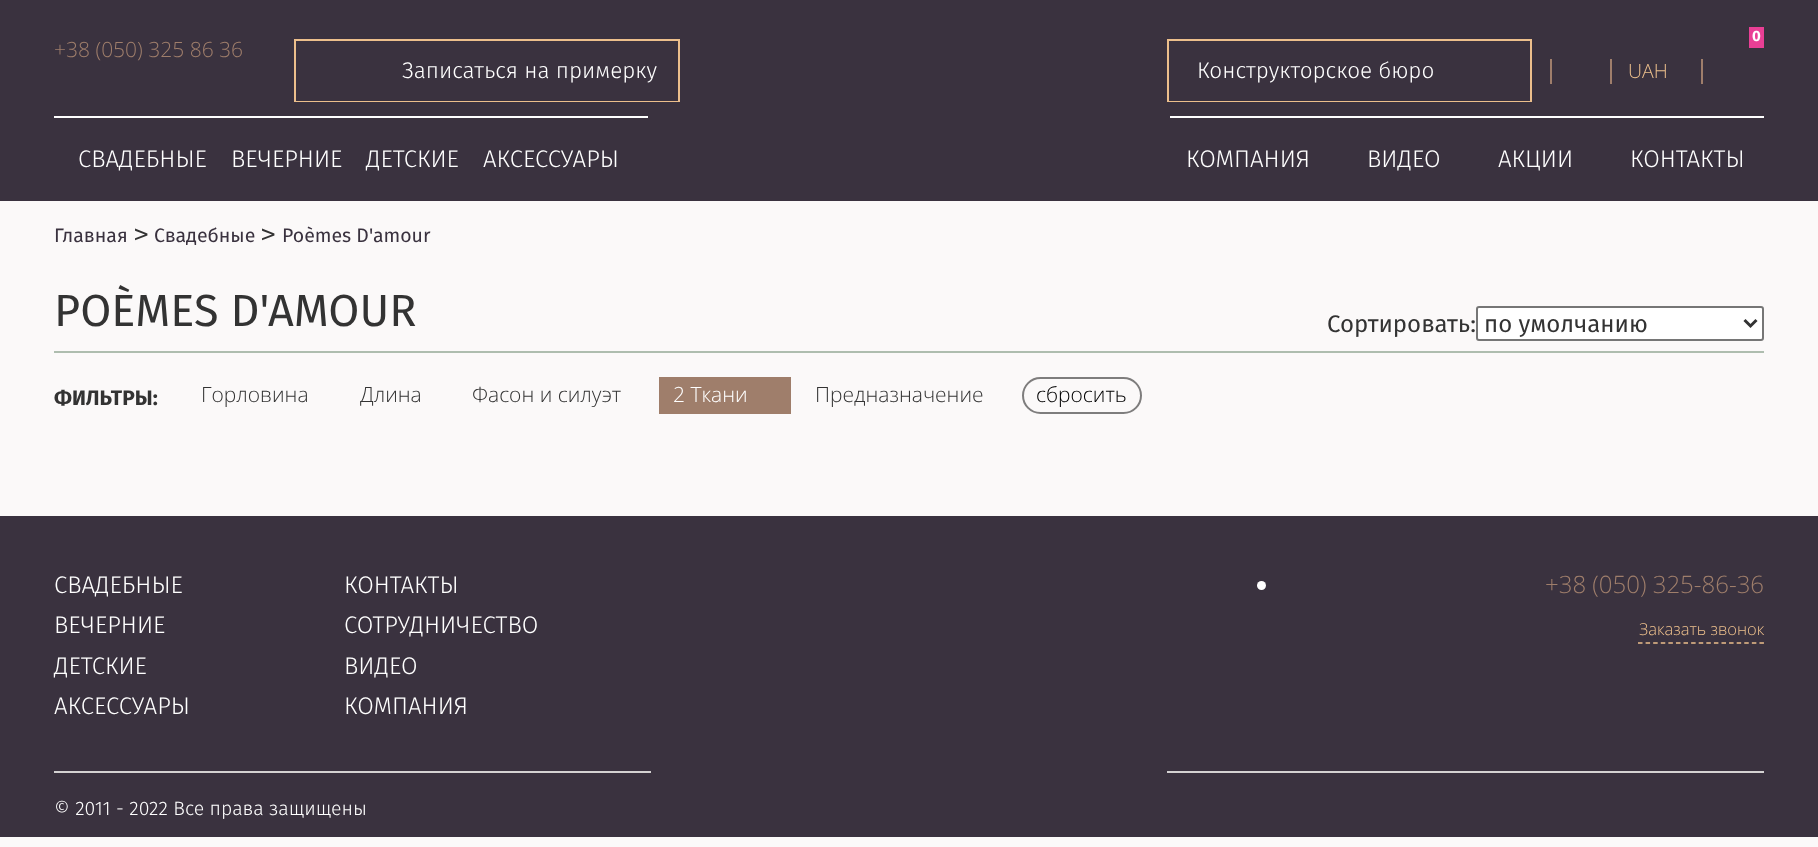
<svg xmlns="http://www.w3.org/2000/svg" width="1818" height="847" viewBox="0 0 1818 847">
  <style>
    .t1 { font: 300 21px Open Sans; fill: #9f7e6b; }
    .t2 { font: 300 22.5px Fira Sans; fill: #fff; }
    .t3 { font: 300 24px Fira Sans; fill: #fff; }
    .t4 { font: bold 15px Fira Sans; fill: #fff; }
    .t5 { font: 300 19.5px Open Sans; fill: #ecbf8c; }
    .t6 { font: 19.5px Fira Sans; fill: #3a323f; }
    .t7 { font: 24px DejaVu Sans Mono; fill: #333; }
    .t8 { font: 45px Fira Sans; fill: #333; }
    .t9 { font: 24px Fira Sans; fill: #333; }
    .t10 { font: bold 21px Fira Sans; fill: #333; }
    .t11 { font: 300 21px Open Sans; fill: #333; }
    .t12 { font: 300 21px Open Sans; fill: #fff; }
    .t13 { font: 300 21px Open Sans; fill: #000; }
    .t14 { font: 300 24px Open Sans; fill: #9f7e6b; }
    .t15 { font: 300 16.5px Open Sans; fill: #ecbf8c; }
    .t16 { font: 300 19.5px Fira Sans; fill: #fff; }
  </style>
  <defs>
    <clipPath id="clip1"><rect x="294" y="39" width="386" height="63"/></clipPath>
    <clipPath id="clip2"><rect x="1167" y="39" width="365" height="63"/></clipPath>
  </defs>
  <rect width="100%" height="100%" fill="#fbf9f9"/>
  <rect x="0" y="0" width="1818" height="201" fill="#3a323f"/>
  <text x="54" y="57" class="t1">+38 (050) 325 86 36</text>
  <g clip-path="url(#clip1)">
    <rect x="294.5" y="39.5" width="385" height="63" fill="none" stroke="#ecbf8c" stroke-width="3"/>
  </g>
  <text x="402" y="78" class="t2">Записаться на примерку</text>
  <rect x="54" y="116" width="594" height="2" fill="#fff"/>
  <text x="78" y="167" class="t3">СВАДЕБНЫЕ</text>
  <text x="231" y="167" class="t3">ВЕЧЕРНИЕ</text>
  <text x="366" y="167" class="t3">ДЕТСКИЕ</text>
  <text x="483" y="167" class="t3">АКСЕССУАРЫ</text>
  <rect x="1749" y="27" width="15" height="21" fill="#e93f95"/>
  <text x="1752" y="41" class="t4">0</text>
  <rect x="1701" y="59" width="2" height="25" fill="#9f7e6b"/>
  <g clip-path="url(#clip2)">
    <rect x="1167.5" y="39.5" width="364" height="63" fill="none" stroke="#ecbf8c" stroke-width="3"/>
  </g>
  <text x="1197" y="78" class="t2">Конструкторское бюро</text>
  <rect x="1550" y="59" width="2" height="25" fill="#9f7e6b"/>
  <rect x="1610" y="59" width="2" height="25" fill="#9f7e6b"/>
  <text x="1628" y="78" class="t5">UAH</text>
  <rect x="1170" y="116" width="594" height="2" fill="#fff"/>
  <text x="1186" y="167" class="t3">КОМПАНИЯ</text>
  <text x="1367" y="167" class="t3">ВИДЕО</text>
  <text x="1498" y="167" class="t3">АКЦИИ</text>
  <text x="1630" y="167" class="t3">КОНТАКТЫ</text>
  <text x="54" y="242" class="t6">Главная</text>
  <text x="134" y="242" class="t7">&gt;</text>
  <text x="154" y="242" class="t6">Свадебные</text>
  <text x="261" y="242" class="t7">&gt;</text>
  <text x="282" y="242" class="t6">Poèmes D'amour</text>
  <text x="54" y="326" class="t8">POÈMES D'AMOUR</text>
  <text x="1327" y="332" class="t9">Сортировать:</text>
  <rect x="1477" y="307" width="286" height="33" rx="2" fill="#fff" stroke="#767676" stroke-width="2"/>
  <path d="M1744.5 320L1750.5 326L1756.5 320" fill="none" stroke="#333" stroke-width="3"/>
  <text x="1484" y="332" class="t9">по умолчанию</text>
  <rect x="54" y="351" width="1710" height="2" fill="#aebdaf"/>
  <text x="54" y="405" class="t10">ФИЛЬТРЫ:</text>
  <text x="201" y="402" class="t11">Горловина</text>
  <text x="360" y="402" class="t11">Длина</text>
  <text x="472" y="402" class="t11">Фасон и силуэт</text>
  <rect x="659" y="377" width="132" height="37" fill="#9f7e6b"/>
  <text x="673" y="402" class="t12">2 Ткани</text>
  <text x="815" y="402" class="t11">Предназначение</text>
  <rect x="1023" y="378" width="118" height="35" rx="17.5" fill="none" stroke="#7e7d7d" stroke-width="2"/>
  <text x="1036" y="402" class="t13">сбросить</text>
  <rect x="0" y="516" width="1818" height="321" fill="#3a323f"/>
  <text x="54" y="593" class="t3">СВАДЕБНЫЕ</text>
  <text x="54" y="633" class="t3">ВЕЧЕРНИЕ</text>
  <text x="54" y="674" class="t3">ДЕТСКИЕ</text>
  <text x="54" y="714" class="t3">АКСЕССУАРЫ</text>
  <text x="344" y="593" class="t3">КОНТАКТЫ</text>
  <text x="344" y="633" class="t3">СОТРУДНИЧЕСТВО</text>
  <text x="344" y="674" class="t3">ВИДЕО</text>
  <text x="344" y="714" class="t3">КОМПАНИЯ</text>
  <circle cx="1261.5" cy="585.5" r="4.5" fill="#fff"/>
  <text x="1545" y="593" class="t14">+38 (050) 325-86-36</text>
  <path d="M1638 643H1764" fill="none" stroke="#ecbf8c" stroke-width="1.5" stroke-dasharray="4.5 3.09"/>
  <text x="1639" y="635" class="t15">Заказать звонок</text>
  <rect x="54" y="771" width="597" height="2" fill="#d4d2d2"/>
  <rect x="1167" y="771" width="597" height="2" fill="#d4d2d2"/>
  <text x="54" y="815" class="t16">© 2011 - 2022 Все права защищены</text>
</svg>
